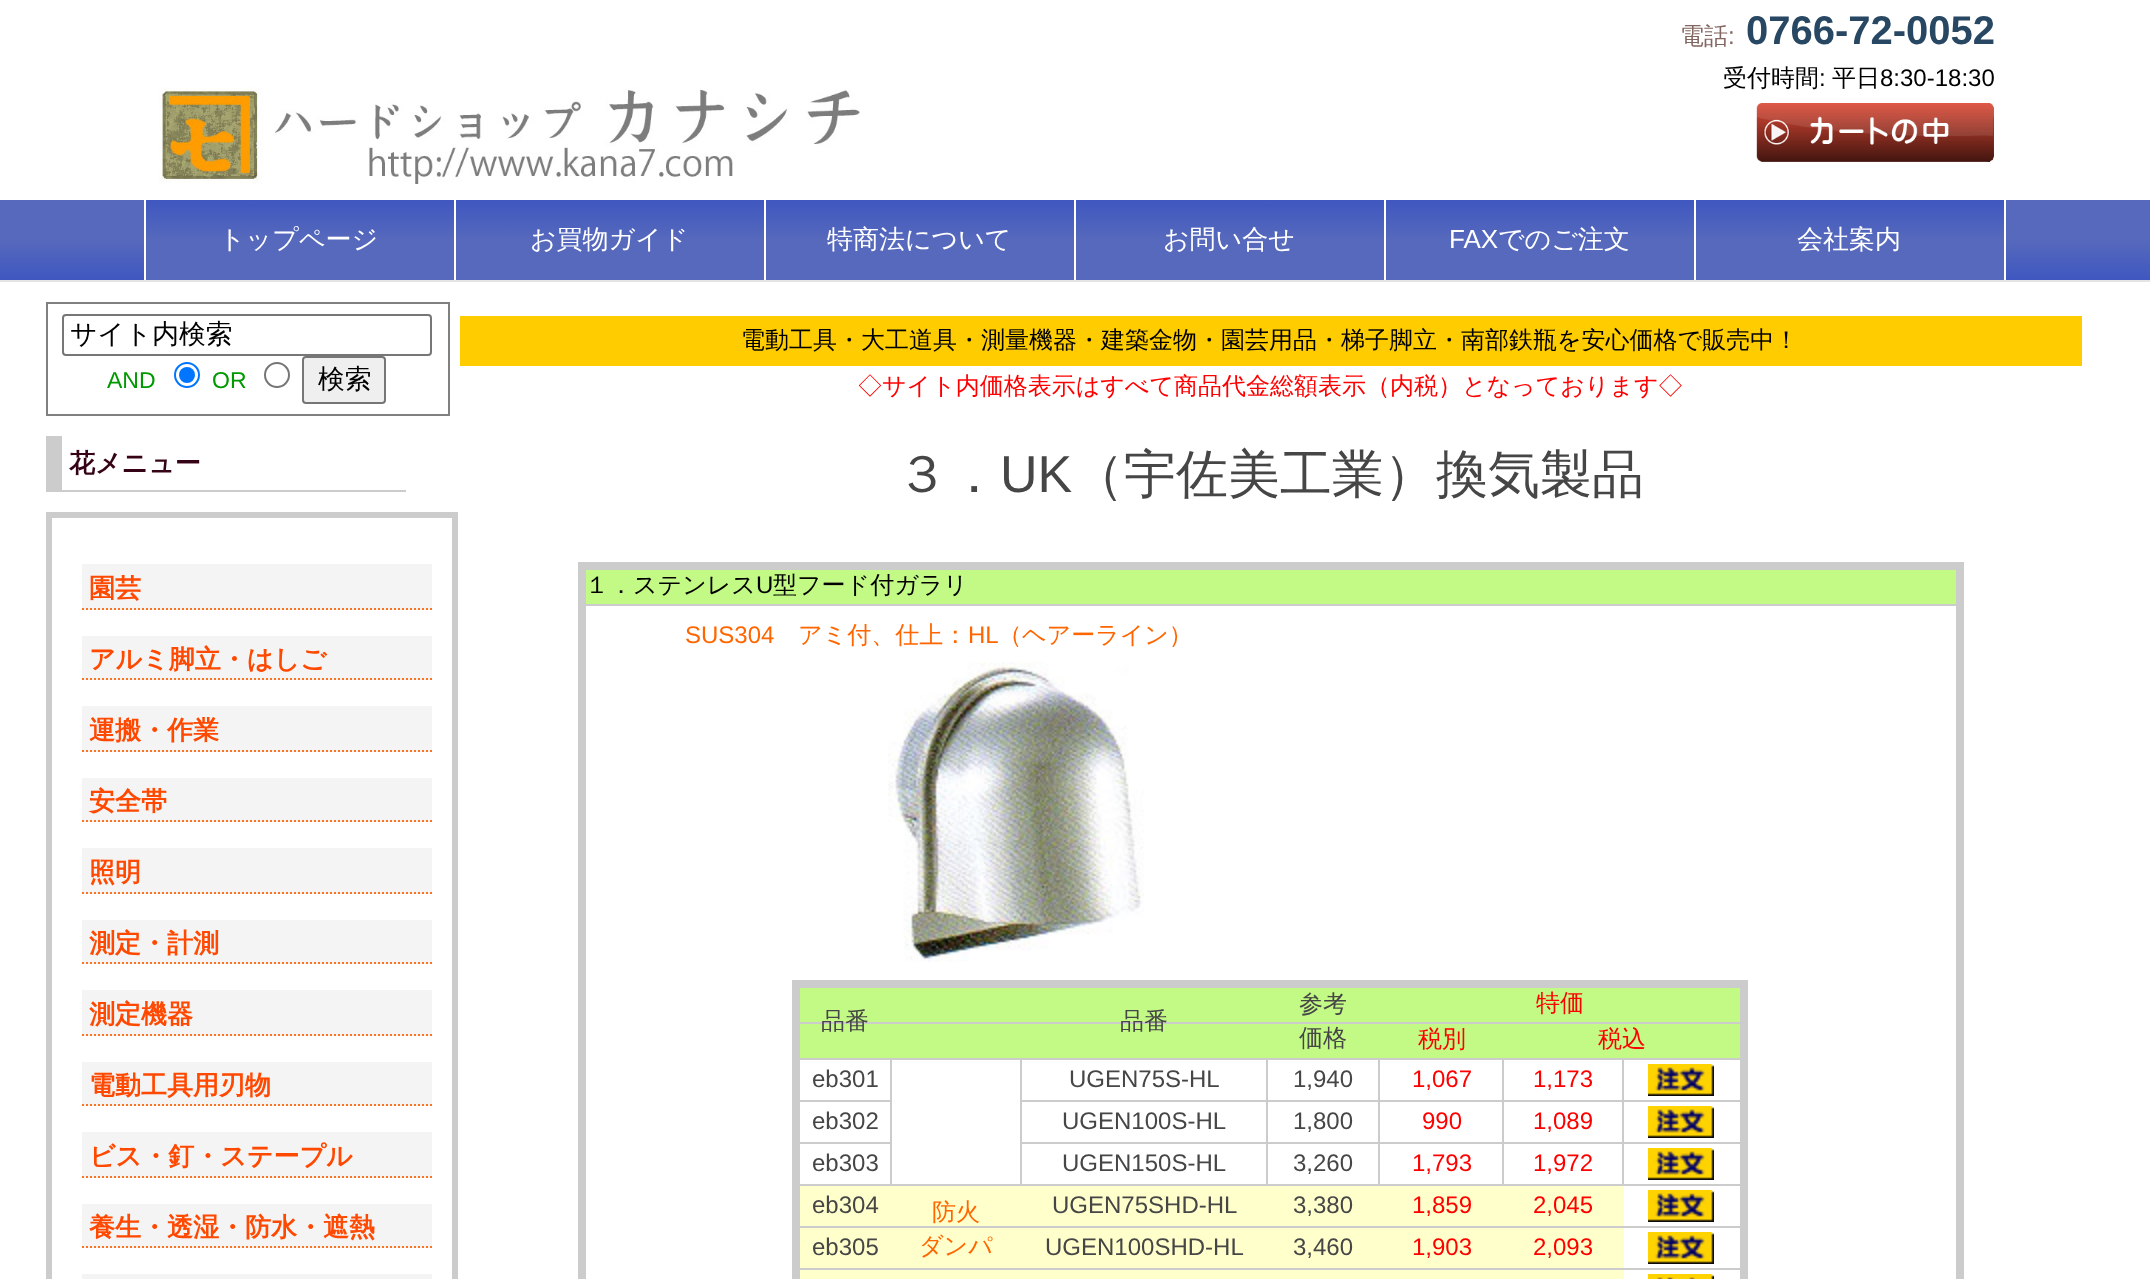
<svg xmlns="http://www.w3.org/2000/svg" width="2150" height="1279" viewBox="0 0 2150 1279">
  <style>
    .t1 { font: 500 24px WenQuanYi Zen Hei; fill: #846661; }
    .t2 { font: 24px Liberation Sans; fill: #846661; }
    .t3 { font: bold 40px Liberation Sans; fill: #284763; }
    .t4 { font: 500 24px WenQuanYi Zen Hei; fill: #000; }
    .t5 { font: 24px Liberation Sans; fill: #000; }
    .t6 { font: 500 26px WenQuanYi Zen Hei; fill: #fff; }
    .t7 { font: 26px Liberation Sans; fill: #fff; }
    .t8 { font: 500 26.75px WenQuanYi Zen Hei; fill: #000; }
    .t9 { font: 23px Liberation Sans; fill: #090; }
    .t10 { font: bold 26px WenQuanYi Zen Hei; fill: #350315; }
    .t11 { font: bold 26px WenQuanYi Zen Hei; fill: #ff4800; }
    .t12 { font: 500 24px WenQuanYi Zen Hei; fill: #f00; }
    .t13 { font: 500 52px WenQuanYi Zen Hei; fill: #464646; }
    .t14 { font: 52px Liberation Sans; fill: #464646; }
    .t15 { font: 24px Liberation Sans; fill: #f60; }
    .t16 { font: 500 24px WenQuanYi Zen Hei; fill: #f60; }
    .t17 { font: 500 24px WenQuanYi Zen Hei; fill: #464646; }
    .t18 { font: 24px Liberation Sans; fill: #464646; }
    .t19 { font: 24px Liberation Sans; fill: #f00; }
  </style>
  <defs>
    <linearGradient id="g1" gradientUnits="userSpaceOnUse" x1="0" y1="200" x2="0" y2="280"><stop offset="0" stop-color="#5669bc"/><stop offset="0.5" stop-color="#5669bc"/><stop offset="1" stop-color="#3f57c0"/></linearGradient>
    <linearGradient id="g2" gradientUnits="userSpaceOnUse" x1="300" y1="200" x2="300" y2="280"><stop offset="0" stop-color="#3f57c0"/><stop offset="0.5" stop-color="#5669bc"/><stop offset="1" stop-color="#5669bc"/></linearGradient>
    <linearGradient id="g3" gradientUnits="userSpaceOnUse" x1="610" y1="200" x2="610" y2="280"><stop offset="0" stop-color="#3f57c0"/><stop offset="0.5" stop-color="#5669bc"/><stop offset="1" stop-color="#5669bc"/></linearGradient>
    <linearGradient id="g4" gradientUnits="userSpaceOnUse" x1="920" y1="200" x2="920" y2="280"><stop offset="0" stop-color="#3f57c0"/><stop offset="0.5" stop-color="#5669bc"/><stop offset="1" stop-color="#5669bc"/></linearGradient>
    <linearGradient id="g5" gradientUnits="userSpaceOnUse" x1="1230" y1="200" x2="1230" y2="280"><stop offset="0" stop-color="#3f57c0"/><stop offset="0.5" stop-color="#5669bc"/><stop offset="1" stop-color="#5669bc"/></linearGradient>
    <linearGradient id="g6" gradientUnits="userSpaceOnUse" x1="1540" y1="200" x2="1540" y2="280"><stop offset="0" stop-color="#3f57c0"/><stop offset="0.5" stop-color="#5669bc"/><stop offset="1" stop-color="#5669bc"/></linearGradient>
    <linearGradient id="g7" gradientUnits="userSpaceOnUse" x1="1850" y1="200" x2="1850" y2="280"><stop offset="0" stop-color="#3f57c0"/><stop offset="0.5" stop-color="#5669bc"/><stop offset="1" stop-color="#5669bc"/></linearGradient>
  </defs>
  <rect width="100%" height="100%" fill="#fff"/>
  <text x="1680" y="44" class="t1">電話</text>
  <text x="1728" y="44" class="t2">:</text>
  <text x="1746" y="44" class="t3">0766-72-0052</text>
  <text x="1723" y="86" class="t4">受付時間</text>
  <text x="1819" y="86" class="t5">:</text>
  <text x="1832" y="86" class="t4">平日</text>
  <text x="1880" y="86" class="t5">8:30-18:30</text>
  <image x="1756" y="103" width="238" height="59" href="images/1.png"/>
  <image x="159" y="87" width="701" height="97" href="images/2.png"/>
  <rect x="0" y="200" width="2150" height="80" fill="url(#g1)"/>
  <rect x="0" y="280" width="2150" height="2" fill="#e4e4e4"/>
  <rect x="146" y="200" width="308" height="80" fill="url(#g2)"/>
  <rect x="144" y="200" width="2" height="80" fill="#fff"/>
  <text x="219" y="248" class="t6">トップページ</text>
  <rect x="456" y="200" width="308" height="80" fill="url(#g3)"/>
  <rect x="454" y="200" width="2" height="80" fill="#fff"/>
  <text x="530" y="248" class="t6">お買物ガイド</text>
  <rect x="766" y="200" width="308" height="80" fill="url(#g4)"/>
  <rect x="764" y="200" width="2" height="80" fill="#fff"/>
  <text x="827" y="248" class="t6">特商法について</text>
  <rect x="1076" y="200" width="308" height="80" fill="url(#g5)"/>
  <rect x="1074" y="200" width="2" height="80" fill="#fff"/>
  <text x="1163" y="248" class="t6">お問い合せ</text>
  <rect x="1386" y="200" width="308" height="80" fill="url(#g6)"/>
  <rect x="1384" y="200" width="2" height="80" fill="#fff"/>
  <text x="1449" y="248" class="t7">FAX</text>
  <text x="1498" y="248" class="t6">でのご注文</text>
  <rect x="2004" y="200" width="2" height="80" fill="#fff"/>
  <rect x="1696" y="200" width="308" height="80" fill="url(#g7)"/>
  <rect x="1694" y="200" width="2" height="80" fill="#fff"/>
  <text x="1797" y="248" class="t6">会社案内</text>
  <rect x="47" y="303" width="402" height="112" fill="none" stroke="#808080" stroke-width="2"/>
  <rect x="63" y="315" width="368" height="40" rx="3" fill="none" stroke="#767676" stroke-width="2"/>
  <text x="70" y="343" class="t8">サイト内検索</text>
  <text x="107" y="388" class="t9">AND</text>
  <circle cx="187" cy="375" r="12" fill="none" stroke="#0075ff" stroke-width="2"/>
  <circle cx="187" cy="375" r="8" fill="#0075ff"/>
  <text x="212" y="388" class="t9">OR</text>
  <circle cx="277" cy="375" r="12" fill="none" stroke="#767676" stroke-width="2"/>
  <rect x="303" y="357" width="82" height="46" rx="3" fill="#efefef" stroke="#767676" stroke-width="2"/>
  <text x="318" y="388" class="t8">検索</text>
  <rect x="62" y="490" width="344" height="2" fill="#ccc"/>
  <rect x="46" y="436" width="16" height="56" fill="#ccc"/>
  <text x="69" y="472" class="t10">花メニュー</text>
  <rect x="49" y="515" width="406" height="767" fill="none" stroke="#ccc" stroke-width="6"/>
  <rect x="82" y="564" width="350" height="46" fill="#f5f4f4"/>
  <path d="M82 609H432" fill="none" stroke="#fa7321" stroke-width="2" stroke-dasharray="2 2"/>
  <text x="89" y="597" class="t11">園芸</text>
  <rect x="82" y="636" width="350" height="44" fill="#f5f4f4"/>
  <path d="M82 679H432" fill="none" stroke="#fa7321" stroke-width="2" stroke-dasharray="2 2"/>
  <text x="89" y="668" class="t11">アルミ脚立・はしご</text>
  <rect x="82" y="706" width="350" height="46" fill="#f5f4f4"/>
  <path d="M82 751H432" fill="none" stroke="#fa7321" stroke-width="2" stroke-dasharray="2 2"/>
  <text x="89" y="739" class="t11">運搬・作業</text>
  <rect x="82" y="778" width="350" height="44" fill="#f5f4f4"/>
  <path d="M82 821H432" fill="none" stroke="#fa7321" stroke-width="2" stroke-dasharray="2 2"/>
  <text x="89" y="810" class="t11">安全帯</text>
  <rect x="82" y="848" width="350" height="46" fill="#f5f4f4"/>
  <path d="M82 893H432" fill="none" stroke="#fa7321" stroke-width="2" stroke-dasharray="2 2"/>
  <text x="89" y="881" class="t11">照明</text>
  <rect x="82" y="920" width="350" height="44" fill="#f5f4f4"/>
  <path d="M82 963H432" fill="none" stroke="#fa7321" stroke-width="2" stroke-dasharray="2 2"/>
  <text x="89" y="952" class="t11">測定・計測</text>
  <rect x="82" y="990" width="350" height="46" fill="#f5f4f4"/>
  <path d="M82 1035H432" fill="none" stroke="#fa7321" stroke-width="2" stroke-dasharray="2 2"/>
  <text x="89" y="1023" class="t11">測定機器</text>
  <rect x="82" y="1062" width="350" height="44" fill="#f5f4f4"/>
  <path d="M82 1105H432" fill="none" stroke="#fa7321" stroke-width="2" stroke-dasharray="2 2"/>
  <text x="89" y="1094" class="t11">電動工具用刃物</text>
  <rect x="82" y="1132" width="350" height="46" fill="#f5f4f4"/>
  <path d="M82 1177H432" fill="none" stroke="#fa7321" stroke-width="2" stroke-dasharray="2 2"/>
  <text x="89" y="1165" class="t11">ビス・釘・ステープル</text>
  <rect x="82" y="1204" width="350" height="44" fill="#f5f4f4"/>
  <path d="M82 1247H432" fill="none" stroke="#fa7321" stroke-width="2" stroke-dasharray="2 2"/>
  <text x="89" y="1236" class="t11">養生・透湿・防水・遮熱</text>
  <rect x="82" y="1274" width="350" height="5" fill="#f5f4f4"/>
  <rect x="460" y="316" width="1622" height="50" fill="#fc0"/>
  <text x="741" y="348" class="t4">電動工具・大工道具・測量機器・建築金物・園芸用品・梯子脚立・南部鉄瓶を安心価格で販売中！</text>
  <text x="858" y="394" class="t12">◇サイト内価格表示はすべて商品代金総額表示（内税）となっております◇</text>
  <text x="896" y="492" class="t13">３．</text>
  <text x="1000" y="492" class="t14">UK</text>
  <text x="1072" y="492" class="t13">（宇佐美工業）換気製品</text>
  <rect x="578" y="562" width="1386" height="717" fill="#ccc"/>
  <rect x="586" y="570" width="1370" height="34" fill="#c2fa85"/>
  <text x="585" y="593" class="t4">１．ステンレス</text>
  <text x="756" y="593" class="t5">U</text>
  <text x="773" y="593" class="t4">型フード付ガラリ</text>
  <rect x="586" y="606" width="1370" height="673" fill="#fff"/>
  <text x="685" y="643" class="t15">SUS304</text>
  <text x="798" y="643" class="t16">アミ付、仕上：</text>
  <text x="968" y="643" class="t15">HL</text>
  <text x="998" y="643" class="t16">（ヘアーライン）</text>
  <image x="888" y="662" width="256" height="300" href="images/3.png"/>
  <rect x="792" y="980" width="956" height="299" fill="#ccc"/>
  <rect x="800" y="988" width="940" height="34" fill="#c2fa85"/>
  <rect x="800" y="1024" width="940" height="34" fill="#c2fa85"/>
  <text x="821" y="1029" class="t17">品番</text>
  <text x="1120" y="1029" class="t17">品番</text>
  <text x="1299" y="1012" class="t17">参考</text>
  <text x="1299" y="1046" class="t17">価格</text>
  <text x="1536" y="1011" class="t12">特価</text>
  <text x="1418" y="1047" class="t12">税別</text>
  <text x="1598" y="1047" class="t12">税込</text>
  <rect x="800" y="1060" width="90" height="40" fill="#fff"/>
  <text x="812" y="1087" class="t18">eb301</text>
  <rect x="892" y="1060" width="128" height="124" fill="#fff"/>
  <rect x="1022" y="1060" width="244" height="40" fill="#fff"/>
  <text x="1069" y="1087" class="t18">UGEN75S-HL</text>
  <rect x="1268" y="1060" width="110" height="40" fill="#fff"/>
  <text x="1293" y="1087" class="t18">1,940</text>
  <rect x="1380" y="1060" width="122" height="40" fill="#fff"/>
  <text x="1412" y="1087" class="t19">1,067</text>
  <rect x="1504" y="1060" width="118" height="40" fill="#fff"/>
  <text x="1533" y="1087" class="t19">1,173</text>
  <rect x="1624" y="1060" width="116" height="40" fill="#fff"/>
  <image x="1648" y="1064" width="66" height="32" href="images/4.png"/>
  <rect x="800" y="1102" width="90" height="40" fill="#fff"/>
  <text x="812" y="1129" class="t18">eb302</text>
  <rect x="1022" y="1102" width="244" height="40" fill="#fff"/>
  <text x="1062" y="1129" class="t18">UGEN100S-HL</text>
  <rect x="1268" y="1102" width="110" height="40" fill="#fff"/>
  <text x="1293" y="1129" class="t18">1,800</text>
  <rect x="1380" y="1102" width="122" height="40" fill="#fff"/>
  <text x="1422" y="1129" class="t19">990</text>
  <rect x="1504" y="1102" width="118" height="40" fill="#fff"/>
  <text x="1533" y="1129" class="t19">1,089</text>
  <rect x="1624" y="1102" width="116" height="40" fill="#fff"/>
  <image x="1648" y="1106" width="66" height="32" href="images/4.png"/>
  <rect x="800" y="1144" width="90" height="40" fill="#fff"/>
  <text x="812" y="1171" class="t18">eb303</text>
  <rect x="1022" y="1144" width="244" height="40" fill="#fff"/>
  <text x="1062" y="1171" class="t18">UGEN150S-HL</text>
  <rect x="1268" y="1144" width="110" height="40" fill="#fff"/>
  <text x="1293" y="1171" class="t18">3,260</text>
  <rect x="1380" y="1144" width="122" height="40" fill="#fff"/>
  <text x="1412" y="1171" class="t19">1,793</text>
  <rect x="1504" y="1144" width="118" height="40" fill="#fff"/>
  <text x="1533" y="1171" class="t19">1,972</text>
  <rect x="1624" y="1144" width="116" height="40" fill="#fff"/>
  <image x="1648" y="1148" width="66" height="32" href="images/4.png"/>
  <rect x="800" y="1186" width="824" height="40" fill="#ffc"/>
  <text x="812" y="1213" class="t18">eb304</text>
  <text x="932" y="1220" class="t16">防火</text>
  <rect x="800" y="1228" width="824" height="40" fill="#ffc"/>
  <text x="919" y="1254" class="t16">ダンパ</text>
  <text x="1052" y="1213" class="t18">UGEN75SHD-HL</text>
  <text x="1293" y="1213" class="t18">3,380</text>
  <text x="1412" y="1213" class="t19">1,859</text>
  <text x="1533" y="1213" class="t19">2,045</text>
  <rect x="1624" y="1186" width="116" height="40" fill="#fff"/>
  <image x="1648" y="1190" width="66" height="32" href="images/4.png"/>
  <text x="812" y="1255" class="t18">eb305</text>
  <text x="1045" y="1255" class="t18">UGEN100SHD-HL</text>
  <text x="1293" y="1255" class="t18">3,460</text>
  <text x="1412" y="1255" class="t19">1,903</text>
  <text x="1533" y="1255" class="t19">2,093</text>
  <rect x="1624" y="1228" width="116" height="40" fill="#fff"/>
  <image x="1648" y="1232" width="66" height="32" href="images/4.png"/>
  <rect x="800" y="1270" width="824" height="9" fill="#ffc"/>
  <rect x="1624" y="1270" width="116" height="9" fill="#fff"/>
  <image x="1648" y="1274" width="66" height="5" href="images/5.png"/>
</svg>
